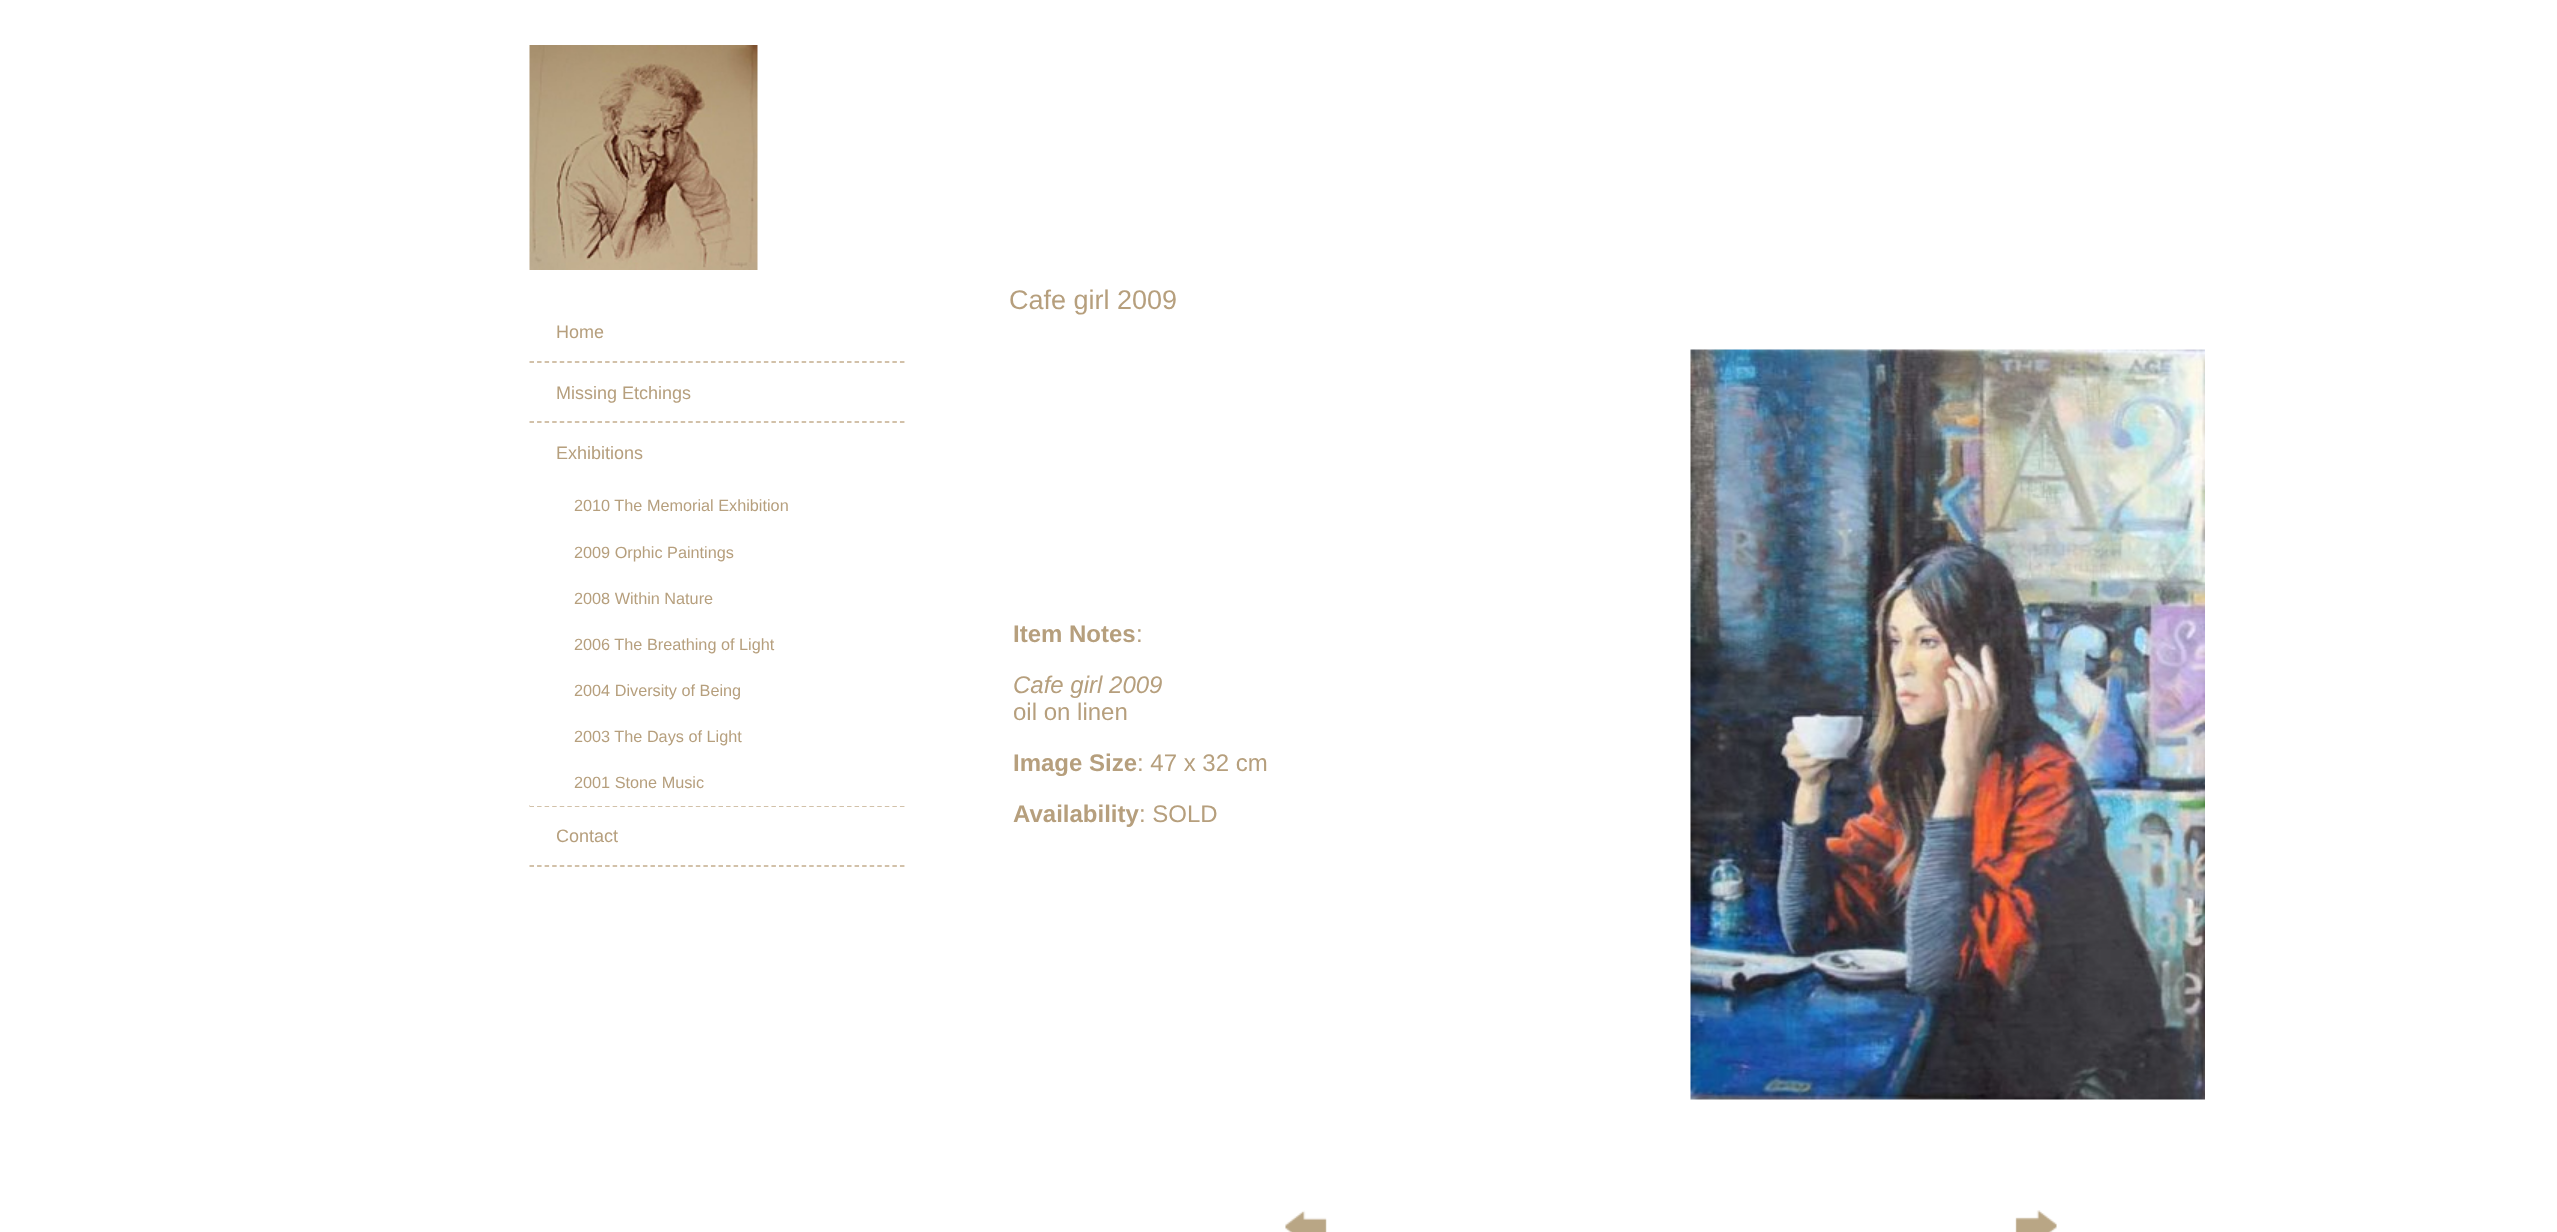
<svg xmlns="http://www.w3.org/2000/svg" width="2557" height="1232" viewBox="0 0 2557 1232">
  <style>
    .t1 { font: 18px Liberation Sans; fill: #b69f7d; }
    .t2 { font: 16.25px Liberation Sans; fill: #b69f7d; }
    .t3 { font: 27px Liberation Sans; fill: #b69f7d; }
    .t4 { font: bold 24px Liberation Sans; fill: #b69f7d; }
    .t5 { font: 24px Liberation Sans; fill: #b69f7d; }
    .t6 { font: italic 24px Liberation Sans; fill: #b69f7d; }
  </style>
  <rect width="100%" height="100%" fill="#fff"/>
  <image x="529" y="45" width="229" height="225" href="images/1.png"/>
  <path d="M529.5 362H904.5" fill="none" stroke="#c4ad8d" stroke-width="1.5" stroke-dasharray="4.5 3.06"/>
  <text x="556" y="338" class="t1">Home</text>
  <path d="M529.5 422H904.5" fill="none" stroke="#c4ad8d" stroke-width="1.5" stroke-dasharray="4.5 3.06"/>
  <text x="556" y="399" class="t1">Missing Etchings</text>
  <path d="M529.5 806H904.5" fill="none" stroke="#c4ad8d" stroke-width="1.5" stroke-dasharray="4.5 3.06"/>
  <text x="556" y="459" class="t1">Exhibitions</text>
  <text x="574" y="511" class="t2">2010 The Memorial Exhibition</text>
  <text x="574" y="558" class="t2">2009 Orphic Paintings</text>
  <text x="574" y="604" class="t2">2008 Within Nature</text>
  <text x="574" y="650" class="t2">2006 The Breathing of Light</text>
  <text x="574" y="696" class="t2">2004 Diversity of Being</text>
  <text x="574" y="742" class="t2">2003 The Days of Light</text>
  <rect x="530" y="805" width="375" height="1" fill="#fff"/>
  <text x="574" y="788" class="t2">2001 Stone Music</text>
  <path d="M529.5 866H904.5" fill="none" stroke="#c4ad8d" stroke-width="1.5" stroke-dasharray="4.5 3.06"/>
  <text x="556" y="842" class="t1">Contact</text>
  <text x="1009" y="309" class="t3">Cafe girl 2009</text>
  <text x="1013" y="642" class="t4">Item Notes</text>
  <text x="1136" y="642" class="t5">:</text>
  <text x="1013" y="693" class="t6">Cafe girl 2009</text>
  <text x="1013" y="720" class="t5">oil on linen</text>
  <text x="1013" y="771" class="t4">Image Size</text>
  <text x="1137" y="771" class="t5">: 47 x 32 cm</text>
  <text x="1013" y="822" class="t4">Availability</text>
  <text x="1139" y="822" class="t5">: SOLD</text>
  <image x="1690" y="349" width="515" height="751" href="images/2.png"/>
  <image x="1285" y="1210" width="42" height="22" href="images/3.png"/>
  <image x="2015" y="1210" width="42" height="22" href="images/4.png"/>
</svg>
